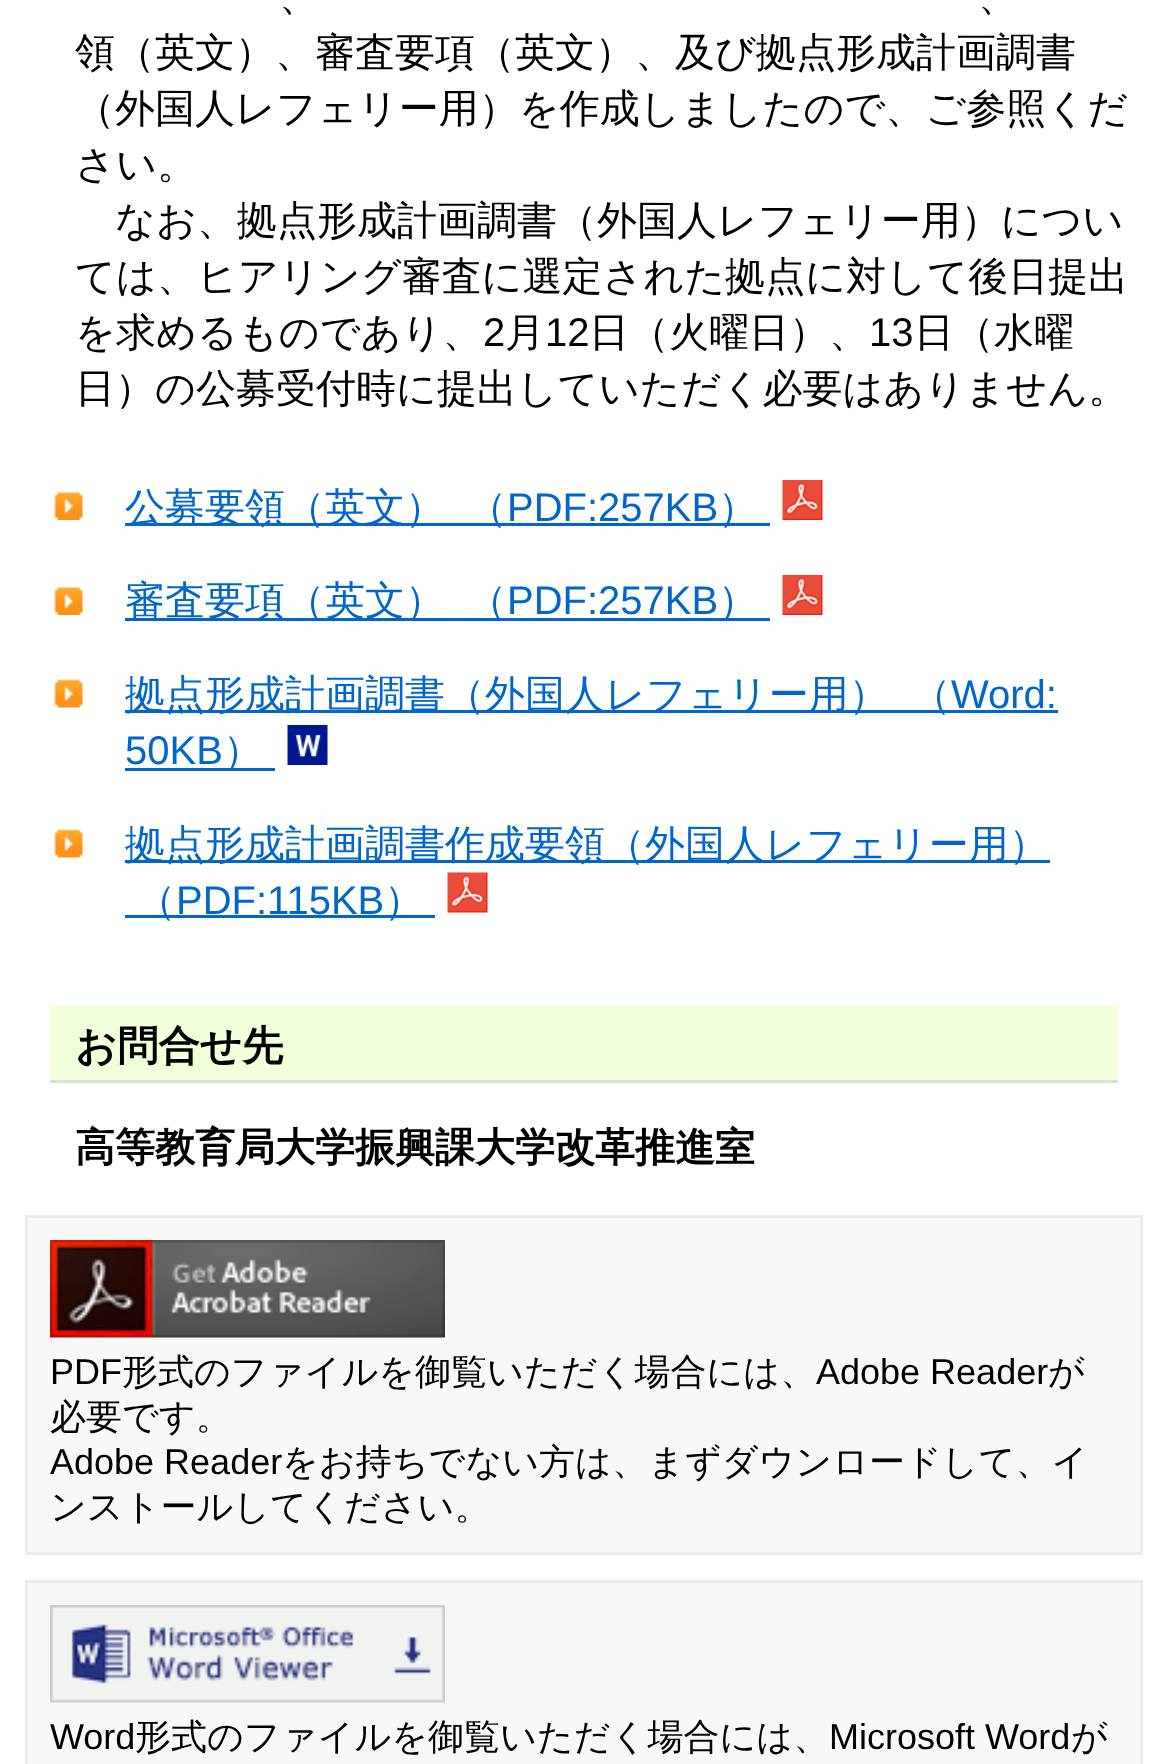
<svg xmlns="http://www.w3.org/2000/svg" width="1166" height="1764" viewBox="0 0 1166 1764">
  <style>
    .t1 { font: 500 40px WenQuanYi Zen Hei; fill: #000; }
    .t2 { font: 40px Liberation Sans; fill: #000; }
    .t3 { font: 500 40px WenQuanYi Zen Hei; fill: #06c; }
    .t4 { font: 40px Liberation Sans; fill: #06c; }
    .t5 { font: bold 41.25px WenQuanYi Zen Hei; fill: #000; }
    .t6 { font: bold 40px WenQuanYi Zen Hei; fill: #000; }
    .t7 { font: 36px Liberation Sans; fill: #000; }
    .t8 { font: 500 36px WenQuanYi Zen Hei; fill: #000; }
  </style>
  <rect width="100%" height="100%" fill="#fff"/>
  <text x="279" y="10" class="t1">、</text>
  <text x="978" y="10" class="t1">、</text>
  <text x="75" y="66" class="t1">領（英文）、審査要項（英文）、及び拠点形成計画調書</text>
  <text x="75" y="122" class="t1">（外国人レフェリー用）を作成しましたので、ご参照くだ</text>
  <text x="75" y="178" class="t1">さい。</text>
  <text x="115" y="234" class="t1">なお、拠点形成計画調書（外国人レフェリー用）につい</text>
  <text x="75" y="290" class="t1">ては、ヒアリング審査に選定された拠点に対して後日提出</text>
  <text x="75" y="346" class="t1">を求めるものであり、</text>
  <text x="483" y="346" class="t2">2</text>
  <text x="505" y="346" class="t1">月</text>
  <text x="545" y="346" class="t2">12</text>
  <text x="589" y="346" class="t1">日（火曜日）、</text>
  <text x="869" y="346" class="t2">13</text>
  <text x="914" y="346" class="t1">日（水曜</text>
  <text x="75" y="402" class="t1">日）の公募受付時に提出していただく必要はありません。</text>
  <image x="54" y="491" width="29" height="29" href="images/1.png"/>
  <rect x="125" y="523" width="645" height="3" fill="#06c"/>
  <text x="125" y="521" class="t3">公募要領（英文）</text>
  <text x="467" y="521" class="t3">（</text>
  <text x="507" y="521" class="t4">PDF:257KB</text>
  <text x="718" y="521" class="t3">）</text>
  <image x="782" y="480" width="41" height="40" href="images/2.png"/>
  <image x="54" y="586" width="29" height="29" href="images/1.png"/>
  <rect x="125" y="618" width="645" height="3" fill="#06c"/>
  <text x="125" y="614" class="t3">審査要項（英文）</text>
  <text x="467" y="614" class="t3">（</text>
  <text x="507" y="614" class="t4">PDF:257KB</text>
  <text x="718" y="614" class="t3">）</text>
  <image x="782" y="575" width="41" height="40" href="images/2.png"/>
  <image x="54" y="679" width="29" height="29" href="images/3.png"/>
  <rect x="125" y="710" width="933" height="3" fill="#06c"/>
  <text x="125" y="708" class="t3">拠点形成計画調書（外国人レフェリー用）</text>
  <text x="911" y="708" class="t3">（</text>
  <text x="951" y="708" class="t4">Word:</text>
  <text x="125" y="764" class="t4">50KB</text>
  <rect x="125" y="768" width="150" height="3" fill="#06c"/>
  <text x="223" y="764" class="t3">）</text>
  <image x="287" y="725" width="41" height="40" href="images/4.png"/>
  <image x="54" y="829" width="29" height="29" href="images/5.png"/>
  <rect x="125" y="860" width="925" height="3" fill="#06c"/>
  <text x="125" y="858" class="t3">拠点形成計画調書作成要領（外国人レフェリー用）</text>
  <rect x="125" y="915" width="310" height="3" fill="#06c"/>
  <text x="136" y="914" class="t3">（</text>
  <text x="176" y="914" class="t4">PDF:115KB</text>
  <text x="384" y="914" class="t3">）</text>
  <image x="447" y="872" width="41" height="41" href="images/6.png"/>
  <rect x="50" y="1005" width="1068" height="75" fill="#f1ffdb"/>
  <rect x="50" y="1080" width="1068" height="3" fill="#dae1d3"/>
  <text x="75" y="1060" class="t5">お問合せ先</text>
  <text x="75" y="1161" class="t6">高等教育局大学振興課大学改革推進室</text>
  <rect x="26.5" y="1216.5" width="1115" height="337" fill="#f8f8f8" stroke="#e8ecee" stroke-width="3"/>
  <image x="50" y="1240" width="395" height="98" href="images/7.png"/>
  <text x="50" y="1384" class="t7">PDF</text>
  <text x="122" y="1384" class="t8">形式のファイルを御覧いただく場合には、</text>
  <text x="816" y="1384" class="t7">Adobe Reader</text>
  <text x="1048" y="1384" class="t8">が</text>
  <text x="50" y="1429" class="t8">必要です。</text>
  <text x="50" y="1474" class="t7">Adobe Reader</text>
  <text x="282" y="1474" class="t8">をお持ちでない方は、まずダウンロードして、イ</text>
  <text x="50" y="1519" class="t8">ンストールしてください。</text>
  <rect x="26.5" y="1581.5" width="1115" height="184" fill="#f8f8f8" stroke="#e8ecee" stroke-width="3"/>
  <image x="50" y="1605" width="395" height="98" href="images/8.png"/>
  <text x="50" y="1749" class="t7">Word</text>
  <text x="135" y="1749" class="t8">形式のファイルを御覧いただく場合には、</text>
  <text x="829" y="1749" class="t7">Microsoft Word</text>
  <text x="1071" y="1749" class="t8">が</text>
</svg>
